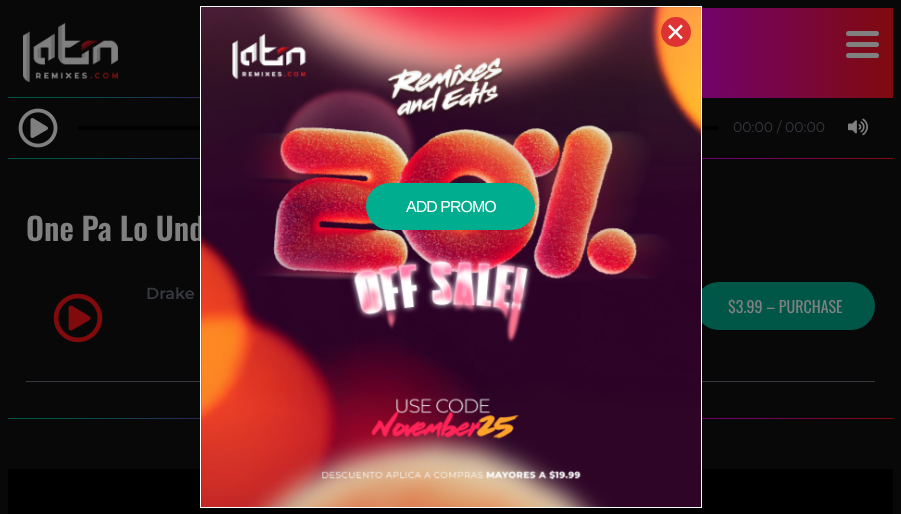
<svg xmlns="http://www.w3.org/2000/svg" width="901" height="514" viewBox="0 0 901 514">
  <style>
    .t1 { font: 600 31.25px Oswald; fill: #808080; }
    .t2 { font: 25px DejaVu Sans; fill: #fff; }
    .t3 { font: 16px Liberation Sans; letter-spacing: -1px; fill: #fff; }
    .t4 { font: 14px Montserrat; fill: #363940; }
    .t5 { font: 600 16px Montserrat; fill: #363940; }
    .t6 { font: 16px Oswald; fill: #808080; }
  </style>
  <defs>
    <linearGradient id="g1" gradientUnits="userSpaceOnUse" x1="8" y1="53" x2="893" y2="52"><stop offset="0.3" stop-color="#080808"/><stop offset="0.56" stop-color="#4a0166"/><stop offset="0.79" stop-color="#720268"/><stop offset="1" stop-color="#800a0d"/></linearGradient>
    <linearGradient id="g2" gradientUnits="userSpaceOnUse" x1="8" y1="98" x2="893" y2="97"><stop offset="0.05" stop-color="#005747"/><stop offset="0.35" stop-color="#4a0166"/><stop offset="0.83" stop-color="#720268"/><stop offset="1" stop-color="#800a0d"/></linearGradient>
    <linearGradient id="g3" gradientUnits="userSpaceOnUse" x1="8" y1="159" x2="893" y2="158"><stop offset="0.05" stop-color="#005747"/><stop offset="0.35" stop-color="#4a0166"/><stop offset="0.83" stop-color="#720268"/><stop offset="1" stop-color="#800a0d"/></linearGradient>
    <linearGradient id="g4" gradientUnits="userSpaceOnUse" x1="8" y1="419" x2="893" y2="419"><stop offset="0.05" stop-color="#005747"/><stop offset="0.35" stop-color="#4a0166"/><stop offset="0.83" stop-color="#720268"/><stop offset="1" stop-color="#800a0d"/></linearGradient>
  </defs>
  <rect width="100%" height="100%" fill="#080808"/>
  <rect x="280" y="8" width="613" height="89" fill="url(#g1)"/>
  <image x="23" y="23" width="95" height="59" href="images/1.png"/>
  <rect x="8" y="97" width="885" height="1" fill="url(#g2)"/>
  <rect x="78" y="126" width="640" height="4" fill="#000"/>
  <rect x="8" y="158" width="885" height="1" fill="url(#g3)"/>
  <text x="26" y="241" class="t1">One Pa Lo Und</text>
  <rect x="26" y="381" width="849" height="1" fill="#363940"/>
  <rect x="695" y="282" width="180" height="48" rx="24" fill="#005747"/>
  <rect x="8" y="418" width="885" height="1" fill="url(#g4)"/>
  <rect x="8" y="469" width="885" height="45" fill="#000"/>
  <image x="201" y="7" width="500" height="500" href="images/2.png"/>
  <rect x="200.5" y="6.5" width="501" height="501" fill="none" stroke="#fff"/>
  <circle cx="676" cy="32" r="15" fill="#d33"/>
  <text x="665" y="41" class="t2">✕</text>
  <rect x="366" y="183" width="169" height="47" rx="23.5" fill="#00ad8e"/>
  <text x="406" y="212" class="t3">ADD PROMO</text>
  <rect x="846" y="42" width="33" height="5" rx="2.5" fill="#808080"/>
  <rect x="846" y="31" width="33" height="5" rx="2.5" fill="#808080"/>
  <rect x="846" y="53" width="33" height="5" rx="2.5" fill="#808080"/>
  <image x="18" y="108" width="40" height="40" href="images/3.png"/>
  <text x="733" y="132" class="t4">00:00 / 00:00</text>
  <image x="848" y="118" width="20" height="18" href="images/4.png"/>
  <image x="53" y="293" width="50" height="50" href="images/5.png"/>
  <text x="146" y="299" class="t5">Drake</text>
  <text x="728" y="313" class="t6">$3.99 – PURCHASE</text>
</svg>
